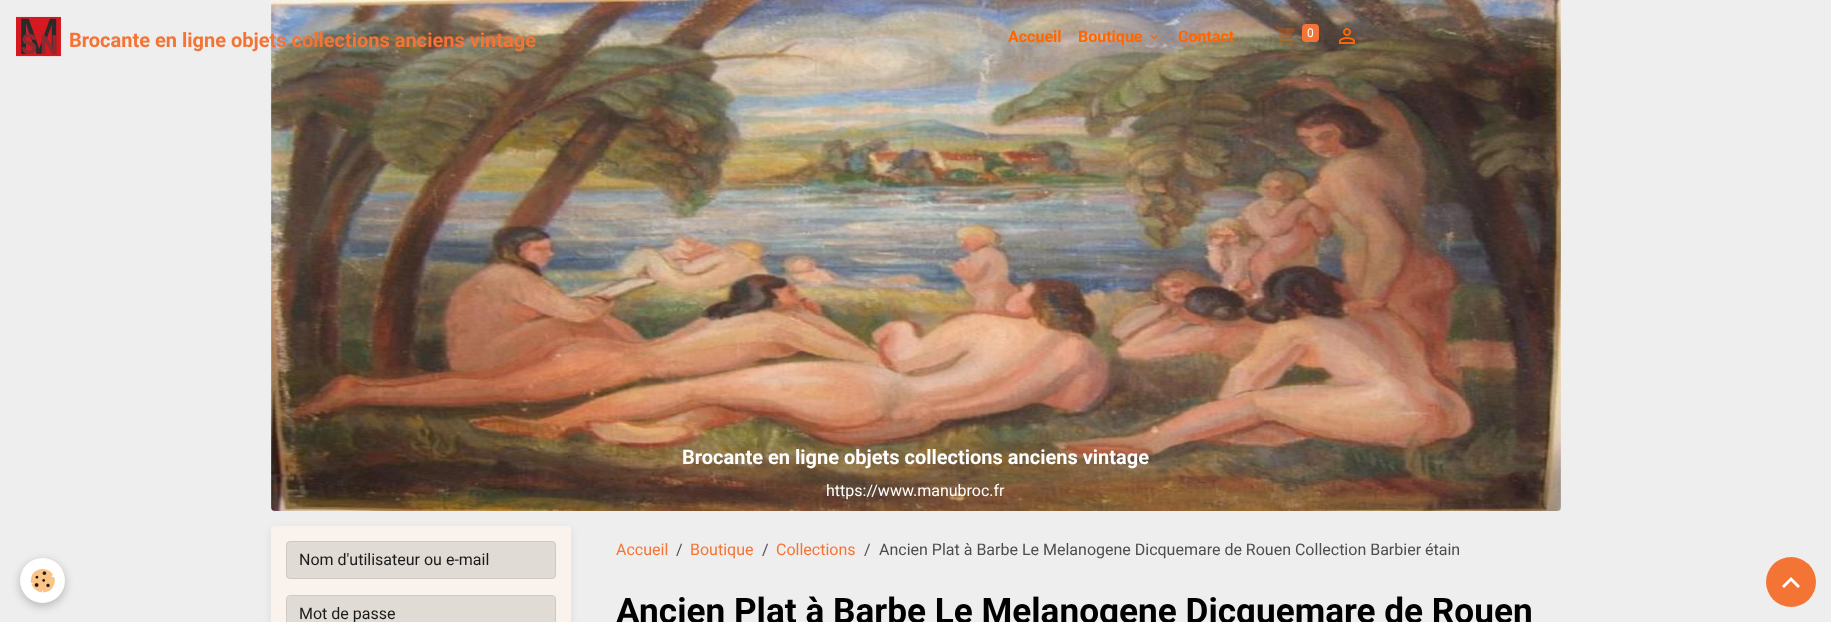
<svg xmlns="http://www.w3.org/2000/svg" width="1831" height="622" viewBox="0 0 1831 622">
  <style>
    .t1 { font: bold 20px Roboto; fill: #f47436; }
    .t2 { font: bold 16px Roboto; fill: #f60; }
    .t3 { font: 12px Roboto; fill: #fff; }
    .t4 { font: bold 20px Roboto; fill: #fff; }
    .t5 { font: 16px Roboto; fill: #fff; }
    .t6 { font: 16px Roboto; fill: #1a1a1a; }
    .t7 { font: 16px Roboto; fill: #f47436; }
    .t8 { font: 16px Roboto; fill: #4d4d4d; }
    .t9 { font: bold 35.2px Roboto; fill: #000; }
  </style>
  <rect width="100%" height="100%" fill="#eee"/>
  <image x="16" y="16" width="45" height="41" href="images/1.png"/>
  <image x="271" y="0" width="1290" height="511" href="images/5.png"/>
  <text x="69" y="47" class="t1">Brocante en ligne objets collections anciens vintage</text>
  <text x="1008" y="42" class="t2">Accueil</text>
  <text x="1078" y="42" class="t2">Boutique</text>
  <image x="1150" y="34" width="8" height="6" href="images/2.png"/>
  <text x="1178" y="42" class="t2">Contact</text>
  <image x="1275" y="26" width="20" height="20" href="images/3.png"/>
  <rect x="1302" y="24" width="17" height="18" rx="4" fill="#f47436"/>
  <text x="1307" y="37" class="t3">0</text>
  <image x="1339" y="28" width="16" height="16" href="images/4.png"/>
  <text x="682" y="464" class="t4">Brocante en ligne objets collections anciens vintage</text>
  <text x="826" y="496" class="t5">https://www.manubroc.fr</text>
  <rect x="20" y="561" width="45" height="45" rx="22.5" fill="#0000003d" filter="blur(5px)"/>
  <circle cx="42.5" cy="580.5" r="22.5" fill="#fff"/>
  <image x="30" y="568" width="25" height="25" href="images/6.png"/>
  <rect x="271" y="529" width="300" height="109" rx="4" fill="#00000012" filter="blur(4px)"/>
  <rect x="271" y="526" width="300" height="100" rx="4" fill="#faf3ed"/>
  <rect x="286.5" y="541.5" width="269" height="37" rx="3.5" fill="#e1dbd5" stroke="#d0c8c1"/>
  <text x="299" y="565" class="t6">Nom d'utilisateur ou e-mail</text>
  <rect x="287" y="596" width="268" height="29" rx="3" fill="#e1dbd5"/>
  <rect x="286.5" y="595.5" width="269" height="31" rx="3.5" fill="none" stroke="#d0c8c1"/>
  <text x="299" y="619" class="t6">Mot de passe</text>
  <text x="616" y="555" class="t7">Accueil</text>
  <text x="676" y="555" class="t8">/</text>
  <text x="690" y="555" class="t7">Boutique</text>
  <text x="762" y="555" class="t8">/</text>
  <text x="776" y="555" class="t7">Collections</text>
  <text x="864" y="555" class="t8">/</text>
  <text x="879" y="555" class="t8">Ancien Plat à Barbe Le Melanogene Dicquemare de Rouen Collection Barbier étain</text>
  <text x="616" y="623" class="t9">Ancien Plat à Barbe Le Melanogene Dicquemare de Rouen</text>
  <circle cx="1791" cy="582" r="25" fill="#f47436"/>
  <path d="M1791 577L1800 586L1798 588L1791 581L1784 588L1782 586Z" fill="#fff"/>
</svg>
